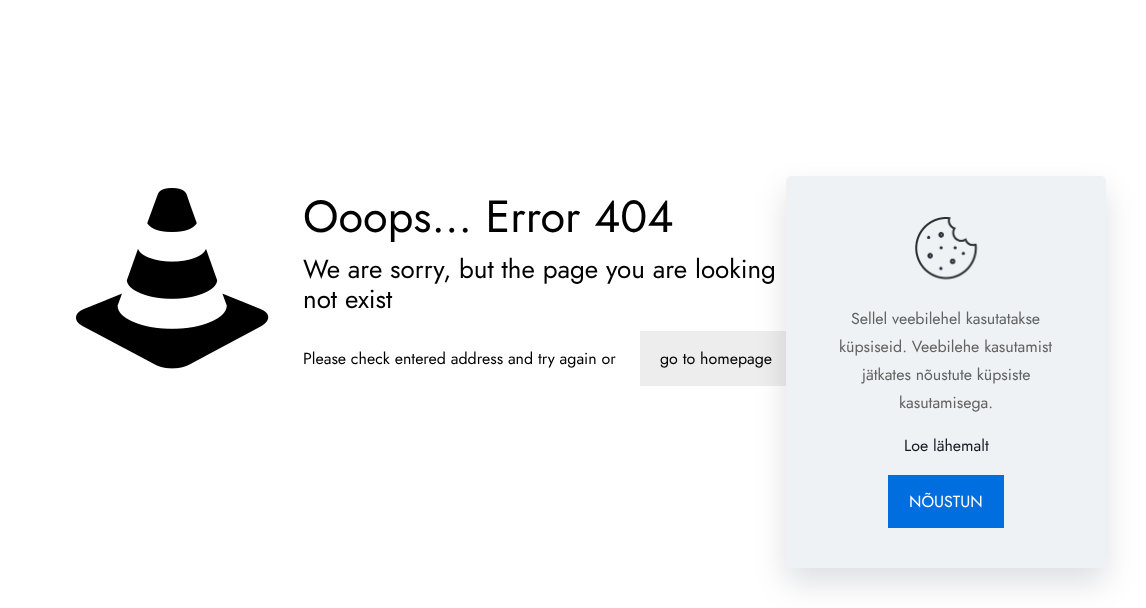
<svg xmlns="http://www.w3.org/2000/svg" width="1146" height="608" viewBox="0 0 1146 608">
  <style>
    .t1 { font: 45px Jost; fill: #000; }
    .t2 { font: 26px Jost; fill: #000; }
    .t3 { font: 16px Jost; fill: #000; }
    .t4 { font: 16px Jost; fill: #626262; }
    .t5 { font: 16px Jost; fill: #161922; }
    .t6 { font: 16px Jost; fill: #fff; }
  </style>
  <rect width="100%" height="100%" fill="#fff"/>
  <image x="76" y="188" width="193" height="181" href="images/1.png"/>
  <text x="303" y="232" class="t1">Ooops... Error 404</text>
  <text x="303" y="278" class="t2">We are sorry, but the page you are looking</text>
  <text x="303" y="308" class="t2">not exist</text>
  <text x="303" y="364" class="t3">Please check entered address and try again or</text>
  <rect x="640" y="331" width="146" height="55" fill="#ededed"/>
  <text x="660" y="364" class="t3">go to homepage</text>
  <rect x="786" y="191" width="320" height="392" rx="5" fill="#01072721" filter="blur(15px)"/>
  <rect x="786" y="176" width="320" height="392" rx="5" fill="#eef2f5"/>
  <image x="915" y="217" width="63" height="63" href="images/2.png"/>
  <text x="851" y="324" class="t4">Sellel veebilehel kasutatakse</text>
  <text x="839" y="352" class="t4">küpsiseid. Veebilehe kasutamist</text>
  <text x="862" y="380" class="t4">jätkates nõustute küpsiste</text>
  <text x="899" y="408" class="t4">kasutamisega.</text>
  <text x="904" y="451" class="t5">Loe lähemalt</text>
  <rect x="888" y="475" width="116" height="53" fill="#006edf"/>
  <text x="909" y="507" class="t6">NÕUSTUN</text>
</svg>
